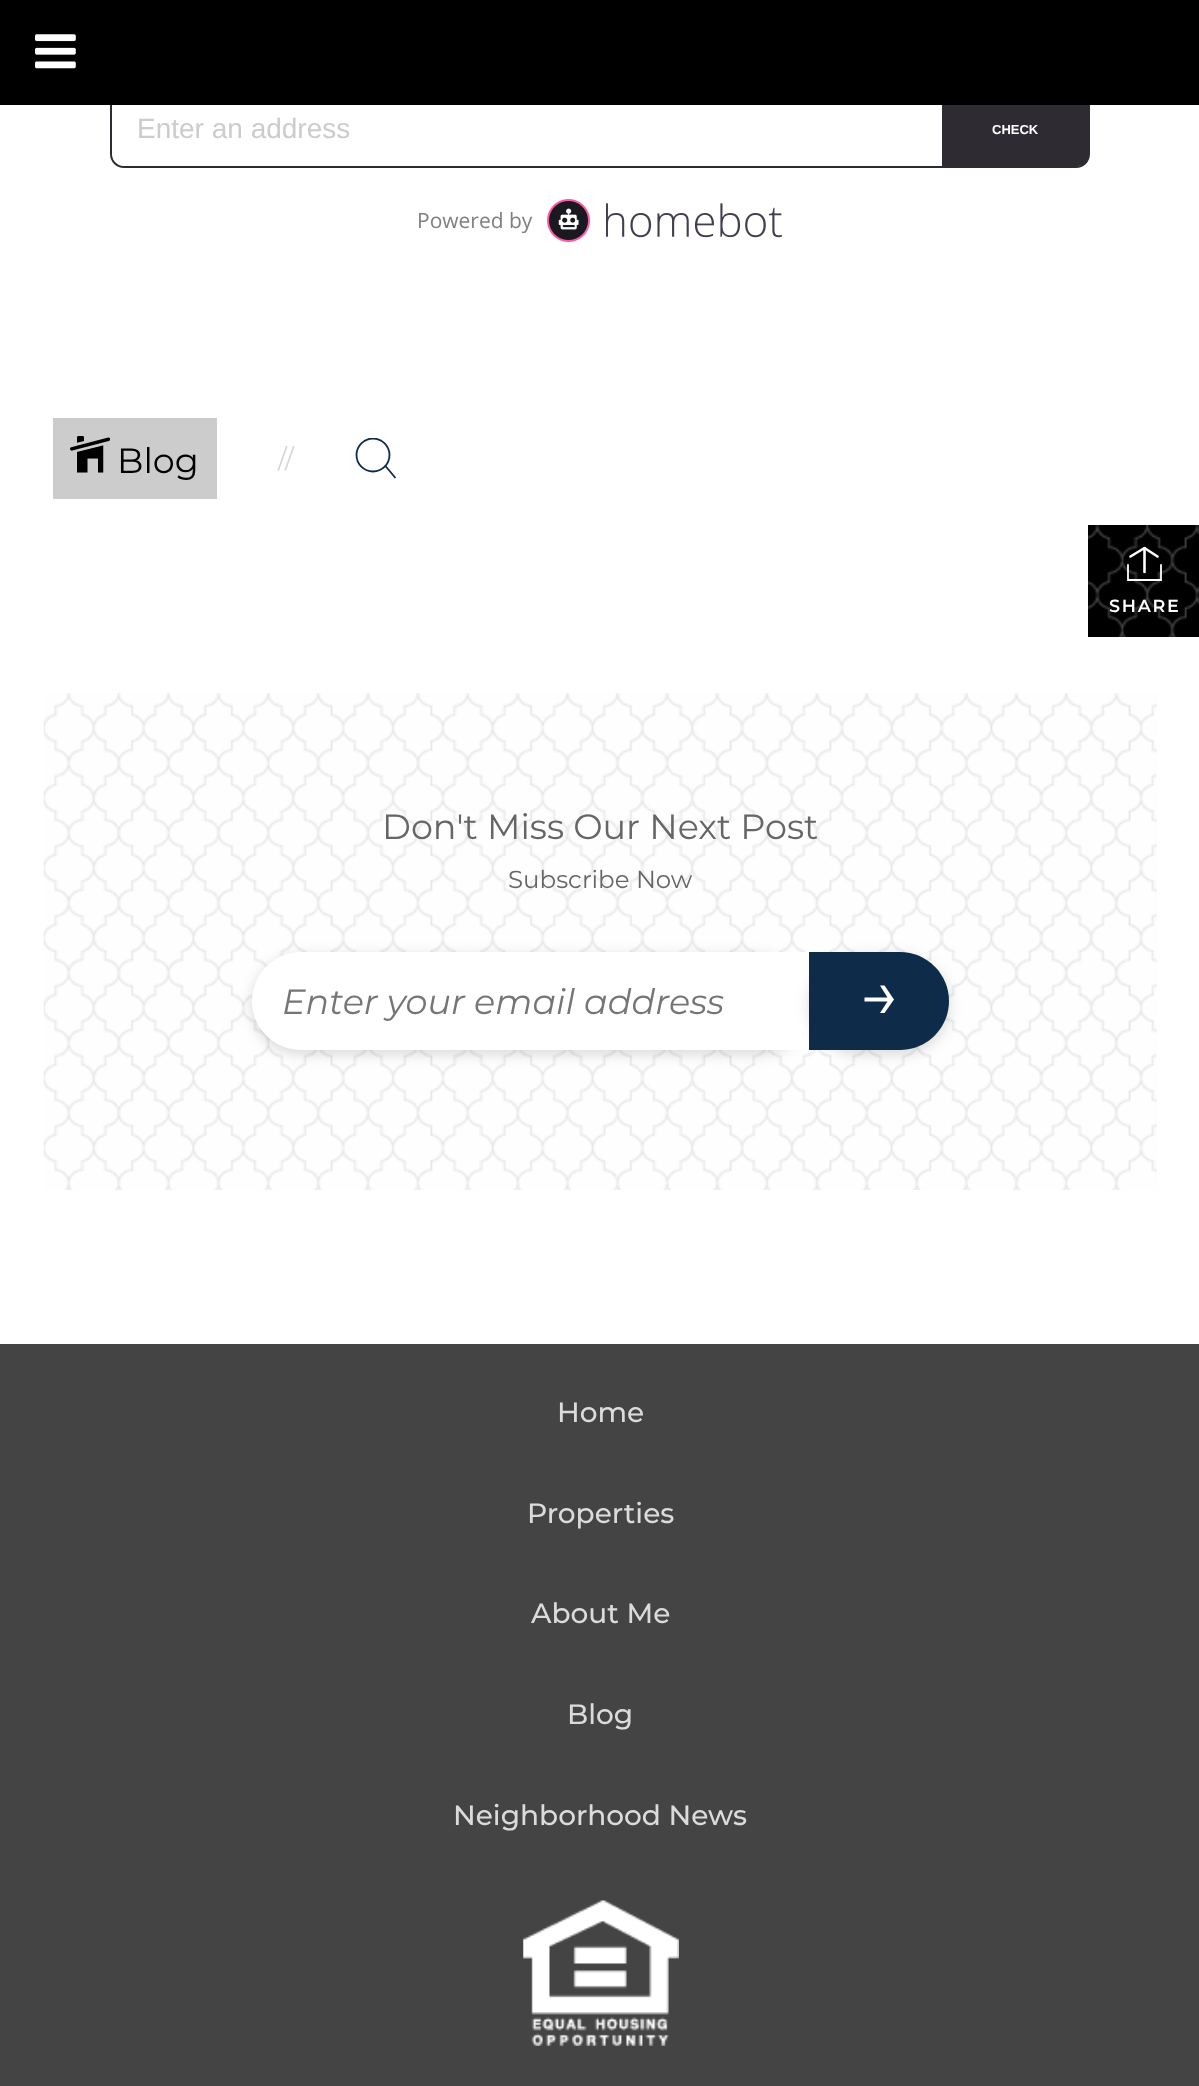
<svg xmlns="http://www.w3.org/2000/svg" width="1199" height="2086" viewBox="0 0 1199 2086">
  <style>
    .t1 { font: 28px Liberation Sans; fill: #ccc; }
    .t2 { font: bold 13px Liberation Sans; fill: #fff; }
    .t3 { font: 21px Open Sans; fill: #808080; }
    .t4 { font: 35px Montserrat; fill: #000; }
    .t5 { font: 26px Montserrat; fill: #d5d5d5; }
    .t6 { font: 600 17.5px Montserrat; letter-spacing: 1.75px; fill: #fff; }
    .t7 { font: 35px Montserrat; fill: #666; }
    .t8 { font: 24.5px Montserrat; fill: #666; }
    .t9 { font: italic 100 35px Montserrat; fill: #757575; }
    .t10 { font: 500 28px Montserrat; fill: #dbdbdb; }
  </style>
  <defs>
    <clipPath id="clip1"><rect x="355" y="438" width="42" height="42"/></clipPath>
  </defs>
  <rect width="100%" height="100%" fill="#fff"/>
  <rect x="111" y="92" width="978" height="75" rx="13" fill="none" stroke="#2e2c32" stroke-width="2"/>
  <rect x="112" y="93" width="977" height="73" rx="14" fill="#fff"/>
  <text x="137" y="138" class="t1">Enter an address</text>
  <path d="M942 93H1078C1084 93 1089 98 1089 104V155C1089 161 1084 166 1078 166H942Z" fill="#2e2c32"/>
  <text x="992" y="134" class="t2">CHECK</text>
  <text x="417" y="228" class="t3">Powered by</text>
  <image x="547" y="199" width="43" height="43" href="images/1.png"/>
  <image x="606" y="203" width="176" height="35" href="images/2.png"/>
  <rect x="0" y="0" width="1199" height="105" fill="#000"/>
  <image x="35" y="34" width="41" height="35" href="images/3.png"/>
  <rect x="53" y="418" width="164" height="81" fill="#ccc"/>
  <image x="70" y="436" width="40" height="37" href="images/4.png"/>
  <text x="117" y="473" class="t4">Blog</text>
  <text x="278" y="468" class="t5">//</text>
  <g clip-path="url(#clip1)">
    <circle cx="373" cy="455" r="16.5" fill="none" stroke="#0e2b4a" stroke-width="1.8"/>
  </g>
  <path d="M385 465.5L395.5 478" fill="none" stroke="#0e2b4a" stroke-width="1.8"/>
  <image x="1088" y="525" width="111" height="112" href="images/5.png"/>
  <path d="M1128 565V580H1161V565" fill="none" stroke="#fff" stroke-width="1.8" stroke-linecap="round"/>
  <path d="M1144.5 572V548.5" fill="none" stroke="#fff" stroke-width="2.6" stroke-linecap="round"/>
  <path d="M1130.5 556.5L1144.5 548L1157.5 556.5" fill="none" stroke="#fff" stroke-width="2.6" stroke-linecap="round" stroke-linejoin="round"/>
  <text x="1109" y="612" class="t6">SHARE</text>
  <rect x="44" y="693" width="1113" height="497" fill="#fcfcfc"/>
  <image x="43" y="693" width="1114" height="497" href="images/6.png"/>
  <text x="382" y="839" class="t7">Don't Miss Our Next Post</text>
  <text x="508" y="888" class="t8">Subscribe Now</text>
  <rect x="252" y="956" width="557" height="98" rx="49" fill="#00000026" filter="blur(7px)"/>
  <path d="M301 952H809V1050H301C274 1050 252 1028 252 1001C252 974 274 952 301 952Z" fill="#fff"/>
  <text x="282" y="1014" class="t9">Enter your email address</text>
  <rect x="809" y="956" width="140" height="98" rx="49" fill="#00000026" filter="blur(7px)"/>
  <path d="M809 952H900C927 952 949 974 949 1001C949 1028 927 1050 900 1050H809Z" fill="#0e2b4a"/>
  <path d="M894 999.5L884.5 1013H880L887.5 1001.5H864.5V997.5H887.5L880 985.5H884.5Z" fill="#fff"/>
  <rect x="0" y="1344" width="1199" height="742" fill="#444"/>
  <text x="557" y="1422" class="t10">Home</text>
  <text x="527" y="1523" class="t10">Properties</text>
  <text x="531" y="1623" class="t10">About Me</text>
  <text x="567" y="1724" class="t10">Blog</text>
  <text x="453" y="1825" class="t10">Neighborhood News</text>
  <image x="523" y="1900" width="156" height="146" href="images/7.png"/>
</svg>
